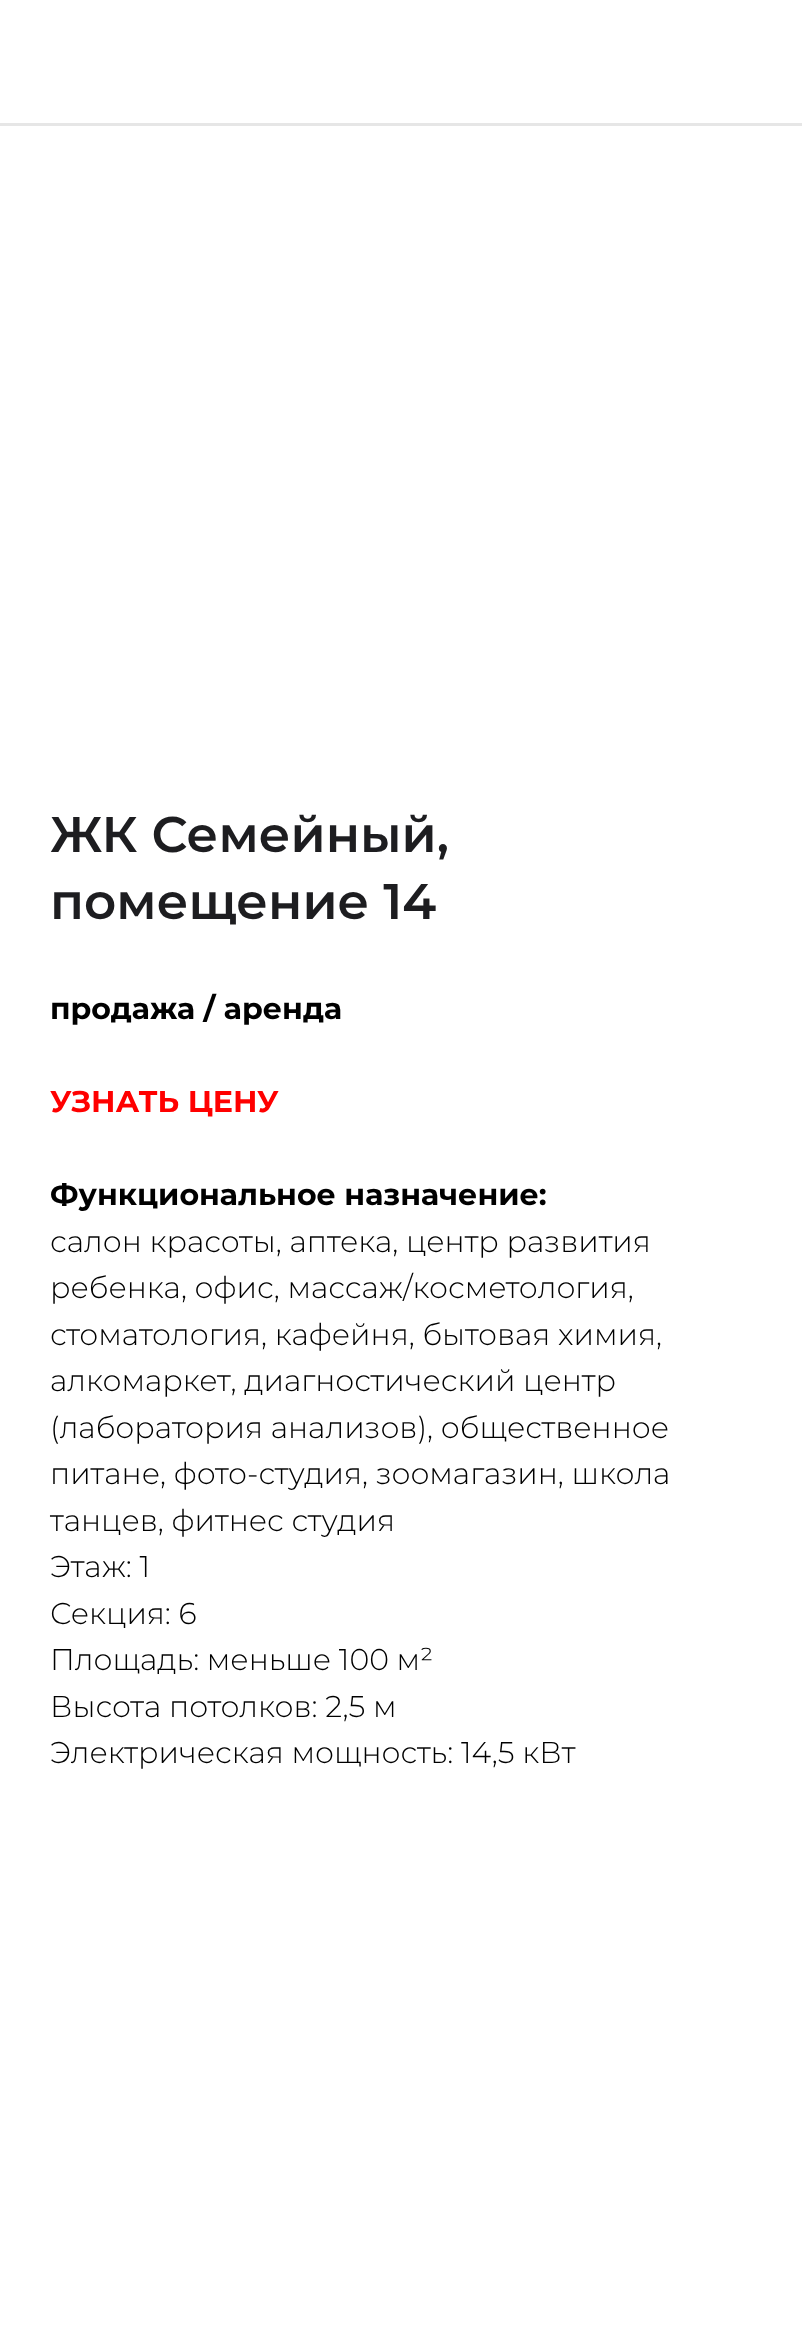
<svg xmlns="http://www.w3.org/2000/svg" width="802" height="2339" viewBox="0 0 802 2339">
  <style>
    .t1 { font: 600 50px Montserrat; fill: #1d1d20; }
    .t2 { font: bold 30px Montserrat; fill: #000; }
    .t3 { font: bold 30px Montserrat; fill: #f00; }
    .t4 { font: 300 30px Montserrat; fill: #000; }
  </style>
  <rect width="100%" height="100%" fill="#fff"/>
  <rect x="0" y="123" width="802" height="3" fill="#e6e6e6"/>
  <text x="50" y="852" class="t1">ЖК Семейный,</text>
  <text x="50" y="919" class="t1">помещение 14</text>
  <text x="50" y="1019" class="t2">продажа / аренда</text>
  <text x="50" y="1112" class="t3">УЗНАТЬ ЦЕНУ</text>
  <text x="50" y="1205" class="t2">Функциональное назначение:</text>
  <text x="50" y="1252" class="t4">салон красоты, аптека, центр развития</text>
  <text x="50" y="1298" class="t4">ребенка, офис, массаж/косметология,</text>
  <text x="50" y="1345" class="t4">стоматология, кафейня, бытовая химия,</text>
  <text x="50" y="1391" class="t4">алкомаркет, диагностический центр</text>
  <text x="50" y="1438" class="t4">(лаборатория анализов), общественное</text>
  <text x="50" y="1484" class="t4">питане, фото-студия, зоомагазин, школа</text>
  <text x="50" y="1531" class="t4">танцев, фитнес студия</text>
  <text x="50" y="1577" class="t4">Этаж: 1</text>
  <text x="50" y="1624" class="t4">Секция: 6</text>
  <text x="50" y="1670" class="t4">Площадь: меньше 100 м²</text>
  <text x="50" y="1717" class="t4">Высота потолков: 2,5 м</text>
  <text x="50" y="1763" class="t4">Электрическая мощность: 14,5 кВт</text>
</svg>
